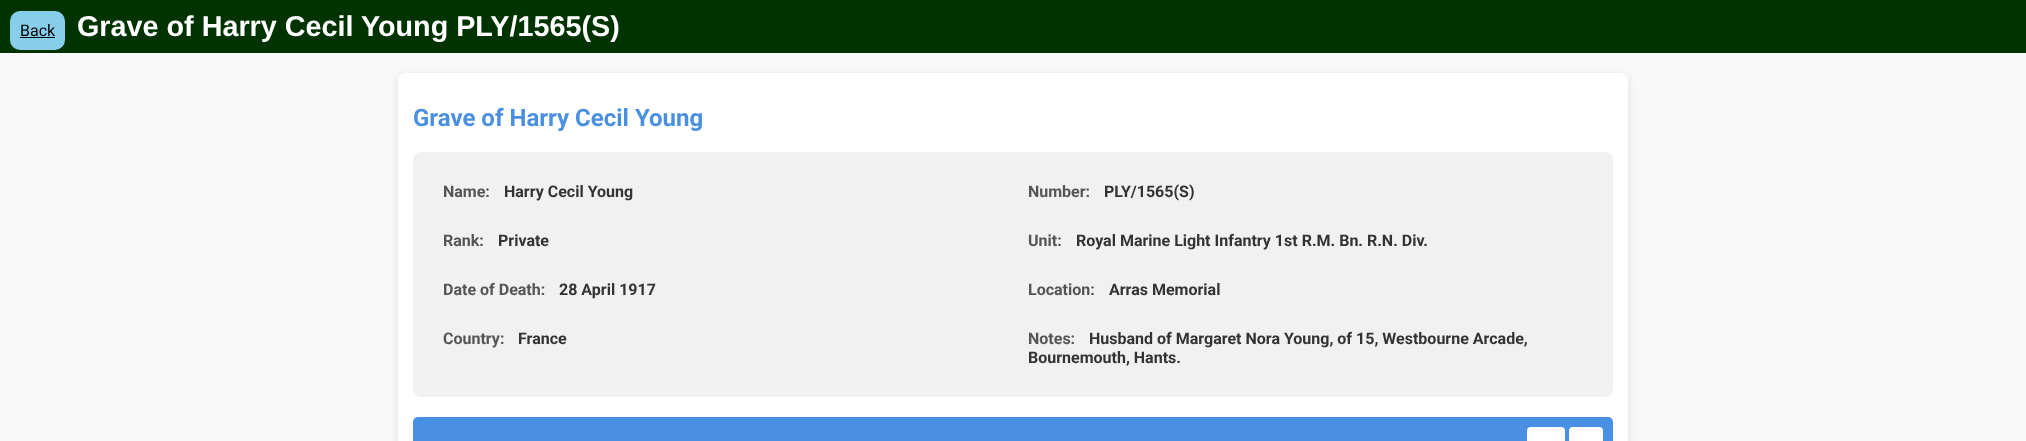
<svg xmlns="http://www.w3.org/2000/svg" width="2026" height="441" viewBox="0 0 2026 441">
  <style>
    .t1 { font: 16px Roboto; fill: #000; }
    .t2 { font: bold 28.75px Liberation Sans; fill: #fff; }
    .t3 { font: bold 24px Roboto; fill: #4a90e2; }
    .t4 { font: bold 16px Roboto; fill: #555; }
    .t5 { font: bold 16px Roboto; fill: #333; }
  </style>
  <rect width="100%" height="100%" fill="#f9f9f9"/>
  <rect x="0" y="0" width="2026" height="53" fill="#030"/>
  <rect x="10" y="11" width="55" height="39" rx="10" fill="#87ceeb"/>
  <text x="20" y="36" class="t1">Back</text>
  <rect x="20" y="37" width="35" height="1" fill="#000"/>
  <text x="77" y="36" class="t2">Grave of Harry Cecil Young PLY/1565(S)</text>
  <rect x="398" y="75" width="1230" height="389" rx="8" fill="#0000001a" filter="blur(5px)"/>
  <rect x="398" y="73" width="1230" height="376" rx="8" fill="#fff"/>
  <text x="413" y="126" class="t3">Grave of Harry Cecil Young</text>
  <rect x="413" y="152" width="1200" height="245" rx="8" fill="#f1f1f1"/>
  <text x="443" y="197" class="t4">Name:</text>
  <text x="504" y="197" class="t5">Harry Cecil Young</text>
  <text x="1028" y="197" class="t4">Number:</text>
  <text x="1104" y="197" class="t5">PLY/1565(S)</text>
  <text x="443" y="246" class="t4">Rank:</text>
  <text x="498" y="246" class="t5">Private</text>
  <text x="1028" y="246" class="t4">Unit:</text>
  <text x="1076" y="246" class="t5">Royal Marine Light Infantry 1st R.M. Bn. R.N. Div.</text>
  <text x="443" y="295" class="t4">Date of Death:</text>
  <text x="559" y="295" class="t5">28 April 1917</text>
  <text x="1028" y="295" class="t4">Location:</text>
  <text x="1109" y="295" class="t5">Arras Memorial</text>
  <text x="443" y="344" class="t4">Country:</text>
  <text x="518" y="344" class="t5">France</text>
  <text x="1028" y="344" class="t4">Notes:</text>
  <text x="1089" y="344" class="t5">Husband of Margaret Nora Young, of 15, Westbourne Arcade,</text>
  <text x="1028" y="363" class="t5">Bournemouth, Hants.</text>
  <rect x="413" y="417" width="1200" height="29" rx="5" fill="#4a90e2"/>
  <rect x="1527" y="427" width="38" height="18" rx="4" fill="#fff"/>
  <rect x="1569" y="427" width="34" height="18" rx="4" fill="#fff"/>
</svg>
